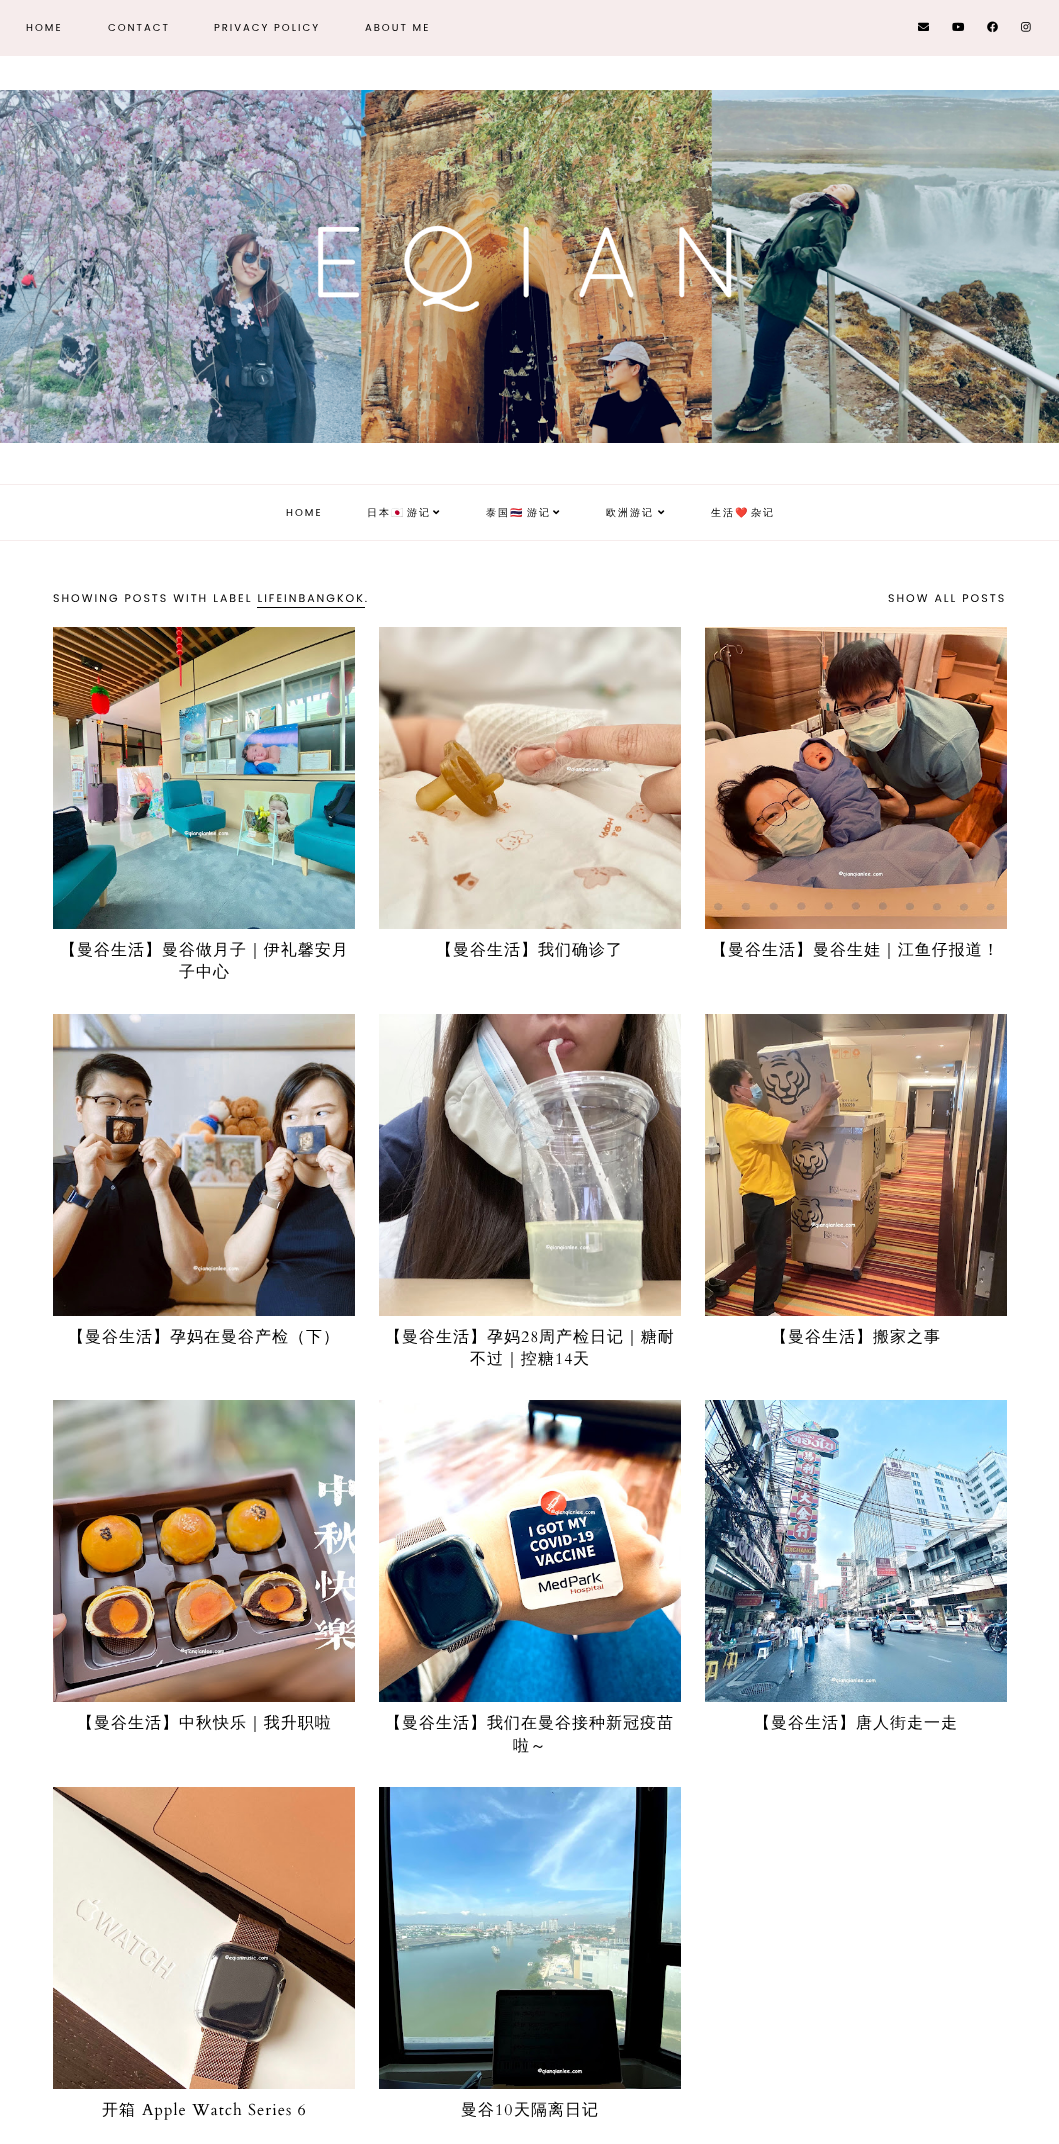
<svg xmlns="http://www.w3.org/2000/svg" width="1059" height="2144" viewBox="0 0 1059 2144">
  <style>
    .t1 { font: 10px Poppins; letter-spacing: 2px; fill: #000; }
    .t2 { font: 500 10px WenQuanYi Zen Hei; letter-spacing: 2px; fill: #000; }
    .t3 { font: 10px Noto Color Emoji; letter-spacing: 2px; fill: #000; }
    .t4 { font: 11px Poppins; letter-spacing: 2px; fill: #000; }
    .t5 { font: 500 16px WenQuanYi Zen Hei; letter-spacing: 1px; fill: #000; }
    .t6 { font: 16px Cardo; letter-spacing: 1px; fill: #000; }
  </style>
  <rect width="100%" height="100%" fill="#fff"/>
  <rect x="0" y="0" width="1059" height="56" fill="#f6ecec"/>
  <text x="26" y="31" class="t1">HOME</text>
  <text x="108" y="31" class="t1">CONTACT</text>
  <text x="214" y="31" class="t1">PRIVACY POLICY</text>
  <text x="365" y="31" class="t1">ABOUT ME</text>
  <image x="918" y="22" width="11" height="9" href="images/1.png"/>
  <image x="952" y="22" width="13" height="9" href="images/2.png"/>
  <image x="987" y="21" width="11" height="12" href="images/3.png"/>
  <image x="1021" y="22" width="10" height="10" href="images/4.png"/>
  <image x="0" y="90" width="1059" height="353" href="images/5.png"/>
  <rect x="0" y="484" width="1059" height="1" fill="#f6ecec"/>
  <rect x="0" y="540" width="1059" height="1" fill="#f6ecec"/>
  <text x="286" y="516" class="t1">HOME</text>
  <text x="367" y="516" class="t2">日本</text>
  <text x="391" y="516" class="t3">🇯🇵</text>
  <text x="407" y="516" class="t2">游记</text>
  <image x="433" y="510" width="7" height="5" href="images/6.png"/>
  <text x="486" y="516" class="t2">泰国</text>
  <text x="510" y="516" class="t3">🇹🇭</text>
  <text x="527" y="516" class="t2">游记</text>
  <image x="553" y="510" width="7" height="5" href="images/6.png"/>
  <text x="606" y="516" class="t2">欧洲游记</text>
  <image x="658" y="510" width="7" height="5" href="images/6.png"/>
  <text x="711" y="516" class="t2">生活</text>
  <text x="735" y="516" class="t3">❤️</text>
  <text x="751" y="516" class="t2">杂记</text>
  <text x="53" y="602" class="t4">SHOWING POSTS WITH LABEL LIFEINBANGKOK.</text>
  <text x="888" y="602" class="t4">SHOW ALL POSTS</text>
  <rect x="257" y="607" width="108" height="1" fill="#000"/>
  <image x="53" y="627" width="302" height="302" href="images/7.png"/>
  <text x="60" y="955" class="t5">【曼谷生活】曼谷做月子｜伊礼馨安月</text>
  <text x="179" y="977" class="t5">子中心</text>
  <image x="379" y="627" width="302" height="302" href="images/8.png"/>
  <text x="436" y="955" class="t5">【曼谷生活】我们确诊了</text>
  <image x="705" y="627" width="302" height="302" href="images/9.png"/>
  <text x="711" y="955" class="t5">【曼谷生活】曼谷生娃｜江鱼仔报道！</text>
  <image x="53" y="1014" width="302" height="302" href="images/10.png"/>
  <text x="68" y="1342" class="t5">【曼谷生活】孕妈在曼谷产检（下）</text>
  <image x="379" y="1014" width="302" height="302" href="images/11.png"/>
  <text x="385" y="1342" class="t5">【曼谷生活】孕妈</text>
  <text x="521" y="1342" class="t6">28</text>
  <text x="539" y="1342" class="t5">周产检日记｜糖耐</text>
  <text x="470" y="1364" class="t5">不过｜控糖</text>
  <text x="555" y="1364" class="t6">14</text>
  <text x="573" y="1364" class="t5">天</text>
  <image x="705" y="1014" width="302" height="302" href="images/12.png"/>
  <text x="771" y="1342" class="t5">【曼谷生活】搬家之事</text>
  <image x="53" y="1400" width="302" height="302" href="images/13.png"/>
  <text x="77" y="1728" class="t5">【曼谷生活】中秋快乐｜我升职啦</text>
  <image x="379" y="1400" width="302" height="302" href="images/14.png"/>
  <text x="385" y="1728" class="t5">【曼谷生活】我们在曼谷接种新冠疫苗</text>
  <text x="513" y="1751" class="t5">啦～</text>
  <image x="705" y="1400" width="302" height="302" href="images/15.png"/>
  <text x="754" y="1728" class="t5">【曼谷生活】唐人街走一走</text>
  <image x="53" y="1787" width="302" height="302" href="images/16.png"/>
  <text x="102" y="2115" class="t5">开箱</text>
  <text x="142" y="2115" class="t6">Apple Watch Series 6</text>
  <image x="379" y="1787" width="302" height="302" href="images/17.png"/>
  <text x="461" y="2115" class="t5">曼谷</text>
  <text x="495" y="2115" class="t6">10</text>
  <text x="514" y="2115" class="t5">天隔离日记</text>
</svg>
